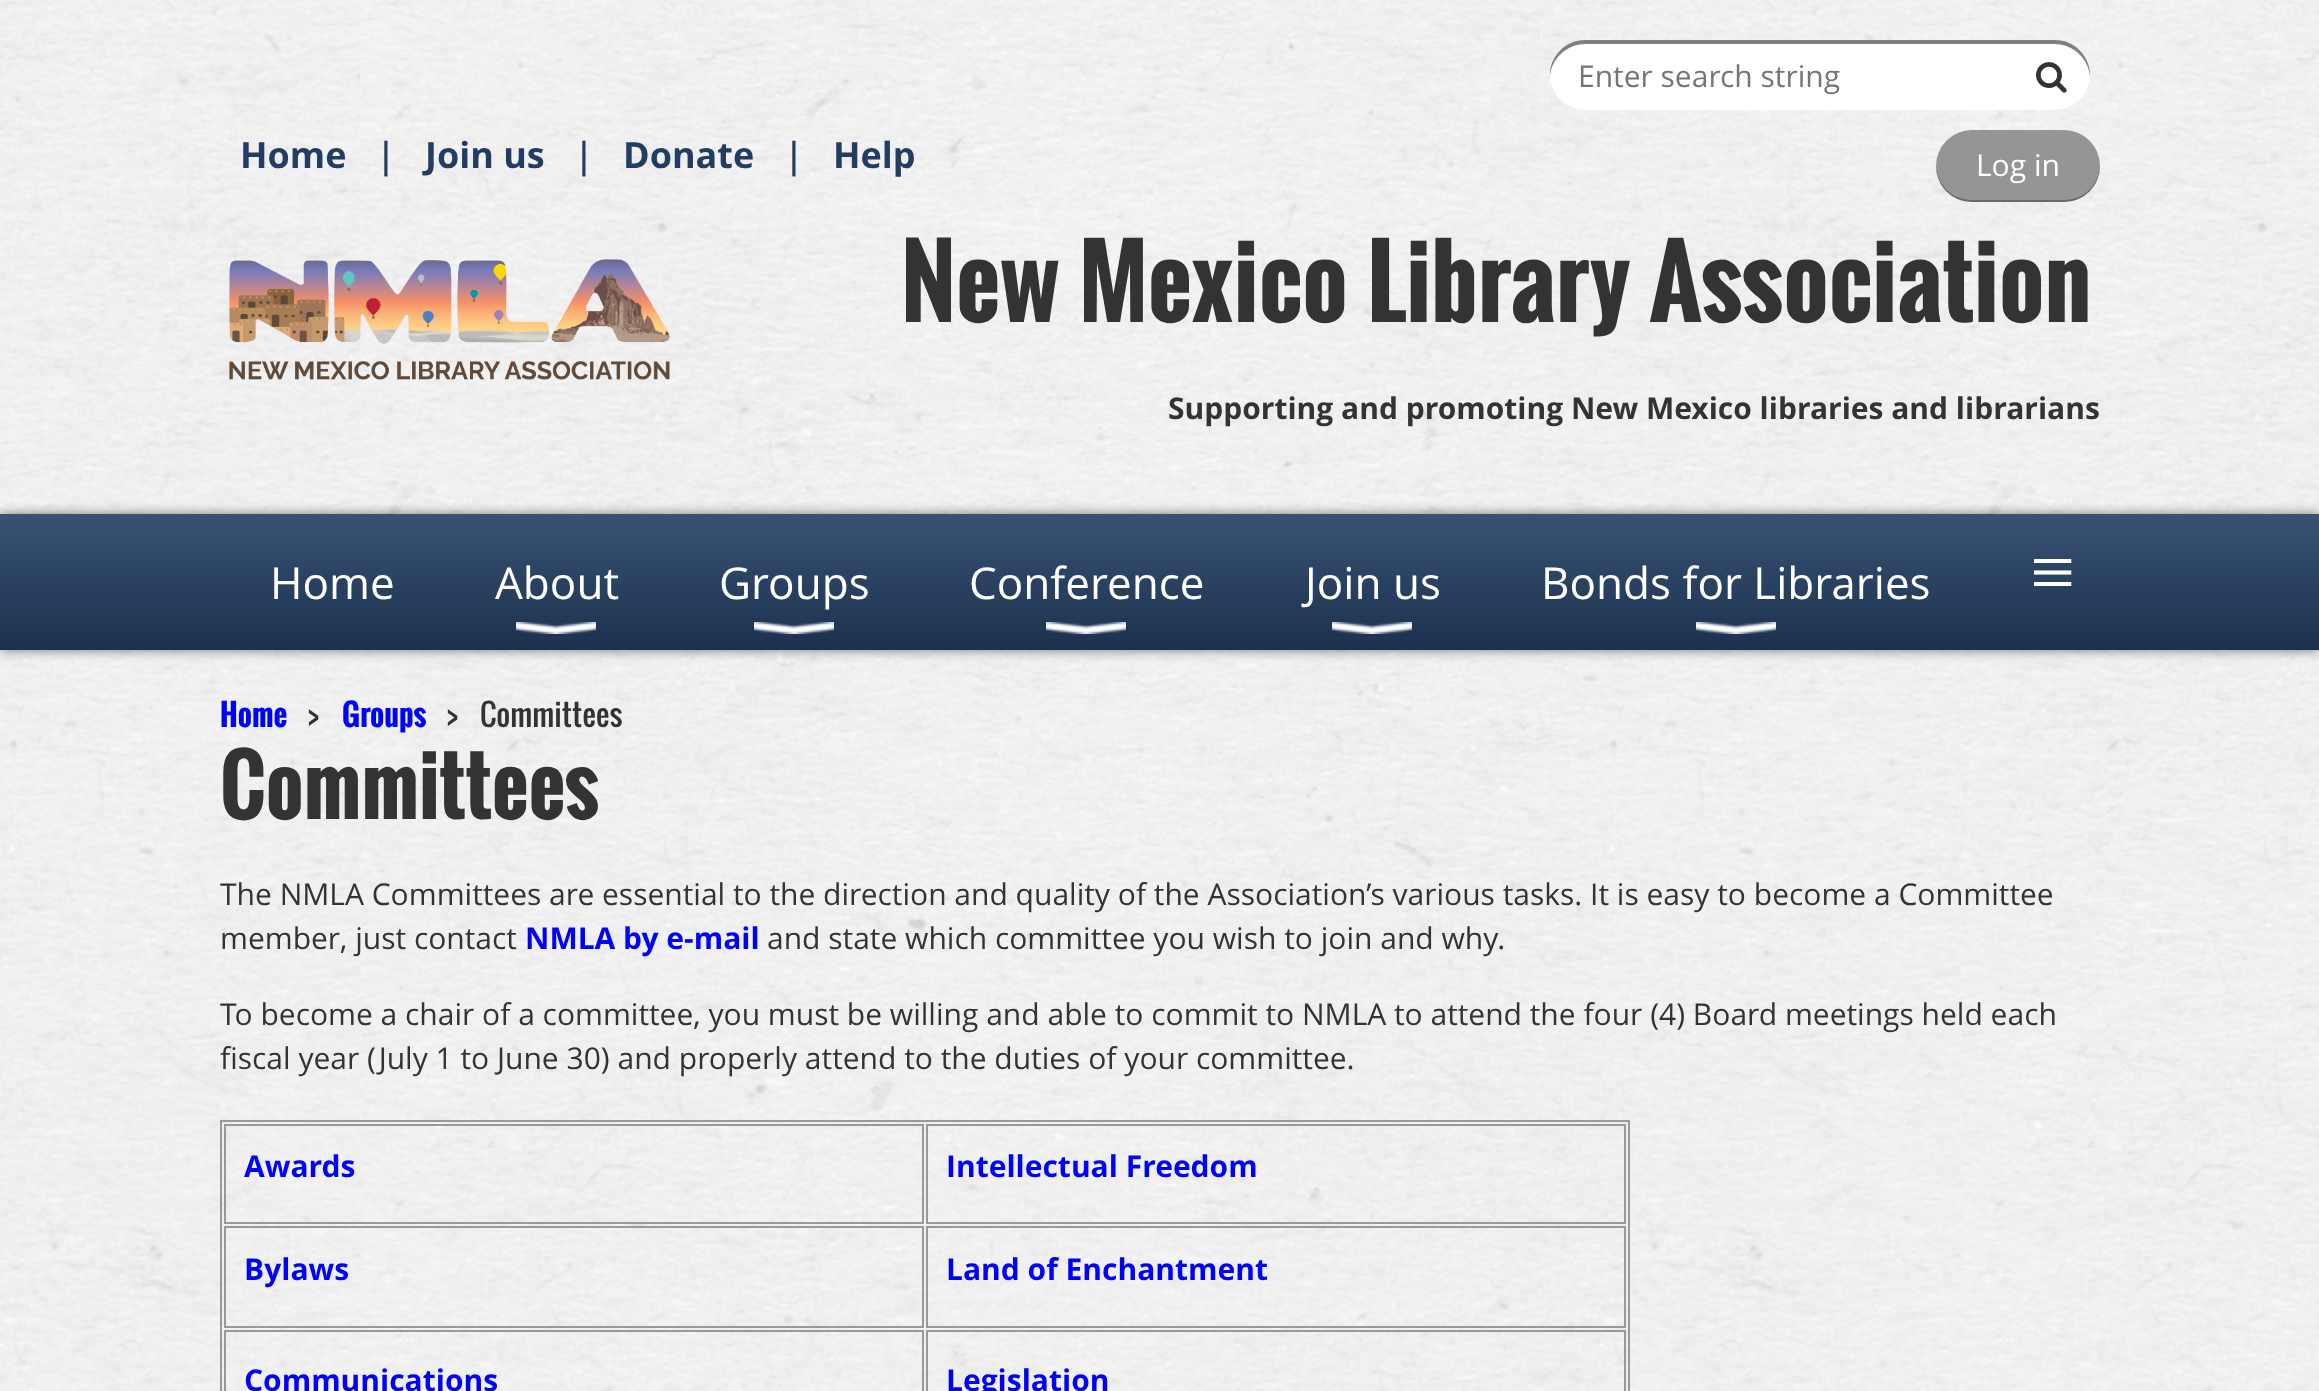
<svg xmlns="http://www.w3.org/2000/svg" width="2319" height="1391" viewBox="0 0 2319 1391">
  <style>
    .t1 { font: 30px Open Sans; fill: #757575; }
    .t2 { font: bold 36px Open Sans; fill: #223d61; }
    .t3 { font: 600 36px Open Sans; fill: #223d61; }
    .t4 { font: 30px Open Sans; fill: #fff; }
    .t5 { font: bold 96px Oswald; fill: #333; }
    .t6 { font: bold 30px Open Sans; fill: #333; }
    .t7 { font: 44px Open Sans; fill: #fff; }
    .t8 { font: 80px Liberation Serif; fill: #fff; }
    .t9 { font: bold 30px Oswald; fill: #00f; }
    .t10 { font: 30px Oswald; fill: #333; }
    .t11 { font: bold 80px Oswald; fill: #333; }
    .t12 { font: 30px Open Sans; fill: #333; }
    .t13 { font: bold 30px Open Sans; fill: #00f; }
  </style>
  <defs>
    <linearGradient id="g1" gradientUnits="userSpaceOnUse" x1="1160" y1="514" x2="1160" y2="650"><stop offset="0" stop-color="#395274"/><stop offset="1" stop-color="#1b314e"/></linearGradient>
  </defs>
  <rect width="100%" height="100%" fill="#fff"/>
  <image x="0" y="0" width="2319" height="1391" href="images/1.png"/>
  <rect x="1550" y="40" width="540" height="70" rx="35" fill="#fff"/>
  <path d="M1585 44H2055C2073 44 2089 59 2090 77C2091 57 2075 40 2055 40H1585C1565 40 1549 57 1550 77C1551 59 1567 44 1585 44Z" fill="#00000080"/>
  <text x="1578" y="87" class="t1">Enter search string</text>
  <image x="2036" y="62" width="31" height="31" href="images/2.png"/>
  <text x="240" y="168" class="t2">Home</text>
  <text x="376" y="168" class="t3">|</text>
  <text x="425" y="168" class="t2">Join us</text>
  <text x="574" y="168" class="t3">|</text>
  <text x="623" y="168" class="t2">Donate</text>
  <text x="784" y="168" class="t3">|</text>
  <text x="833" y="168" class="t2">Help</text>
  <rect x="1936" y="130" width="164" height="72" rx="36" fill="#959595"/>
  <path d="M1936 165V166C1936 186 1952 202 1972 202H2064C2084 202 2100 186 2100 166V165C2099 185 2084 200 2064 200H1972C1952 200 1937 185 1936 165Z" fill="#0000004d"/>
  <text x="1976" y="176" class="t4">Log in</text>
  <image x="229" y="259" width="441" height="121" href="images/3.png"/>
  <text x="901" y="322" class="t5">New Mexico Library Association</text>
  <text x="1168" y="419" class="t6">Supporting and promoting New Mexico libraries and librarians</text>
  <rect x="0" y="514" width="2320" height="136" fill="#00000080" filter="blur(6px)"/>
  <rect x="0" y="514" width="2319" height="136" fill="url(#g1)"/>
  <text x="270" y="599" class="t7">Home</text>
  <text x="495" y="599" class="t7">About</text>
  <image x="516" y="622" width="80" height="12" href="images/4.png"/>
  <text x="719" y="599" class="t7">Groups</text>
  <image x="754" y="622" width="80" height="12" href="images/4.png"/>
  <text x="969" y="599" class="t7">Conference</text>
  <image x="1046" y="622" width="80" height="12" href="images/4.png"/>
  <text x="1305" y="599" class="t7">Join us</text>
  <image x="1332" y="622" width="80" height="12" href="images/4.png"/>
  <text x="1541" y="599" class="t7">Bonds for Libraries</text>
  <image x="1696" y="622" width="80" height="12" href="images/4.png"/>
  <text x="2030" y="599" class="t8">≡</text>
  <text x="220" y="727" class="t9">Home</text>
  <text x="307" y="727" class="t10">&gt;</text>
  <text x="342" y="727" class="t9">Groups</text>
  <text x="446" y="727" class="t10">&gt;</text>
  <text x="480" y="727" class="t10">Committees</text>
  <text x="220" y="819" class="t11">Committees</text>
  <text x="220" y="905" class="t12">The NMLA Committees are essential to the direction and quality of the Association’s various tasks. It is easy to become a Committee</text>
  <text x="220" y="949" class="t12">member, just contact</text>
  <text x="525" y="949" class="t13">NMLA by e-mail</text>
  <text x="767" y="949" class="t12">and state which committee you wish to join and why.</text>
  <text x="220" y="1025" class="t12">To become a chair of a committee, you must be willing and able to commit to NMLA to attend the four (4) Board meetings held each</text>
  <text x="220" y="1069" class="t12">fiscal year (July 1 to June 30) and properly attend to the duties of your committee.</text>
  <rect x="221" y="1121" width="1408" height="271" fill="none" stroke="#999" stroke-width="2"/>
  <rect x="225" y="1125" width="698" height="98" fill="none" stroke="#999" stroke-width="2"/>
  <text x="244" y="1177" class="t13">Awards</text>
  <rect x="927" y="1125" width="698" height="98" fill="none" stroke="#999" stroke-width="2"/>
  <text x="946" y="1177" class="t13">Intellectual Freedom</text>
  <rect x="225" y="1227" width="698" height="100" fill="none" stroke="#999" stroke-width="2"/>
  <text x="244" y="1280" class="t13">Bylaws</text>
  <rect x="927" y="1227" width="698" height="100" fill="none" stroke="#999" stroke-width="2"/>
  <text x="946" y="1280" class="t13">Land of Enchantment</text>
  <rect x="225" y="1331" width="698" height="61" fill="none" stroke="#999" stroke-width="2"/>
  <text x="244" y="1391" class="t13">Communications</text>
  <rect x="927" y="1331" width="698" height="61" fill="none" stroke="#999" stroke-width="2"/>
  <text x="946" y="1391" class="t13">Legislation</text>
</svg>
